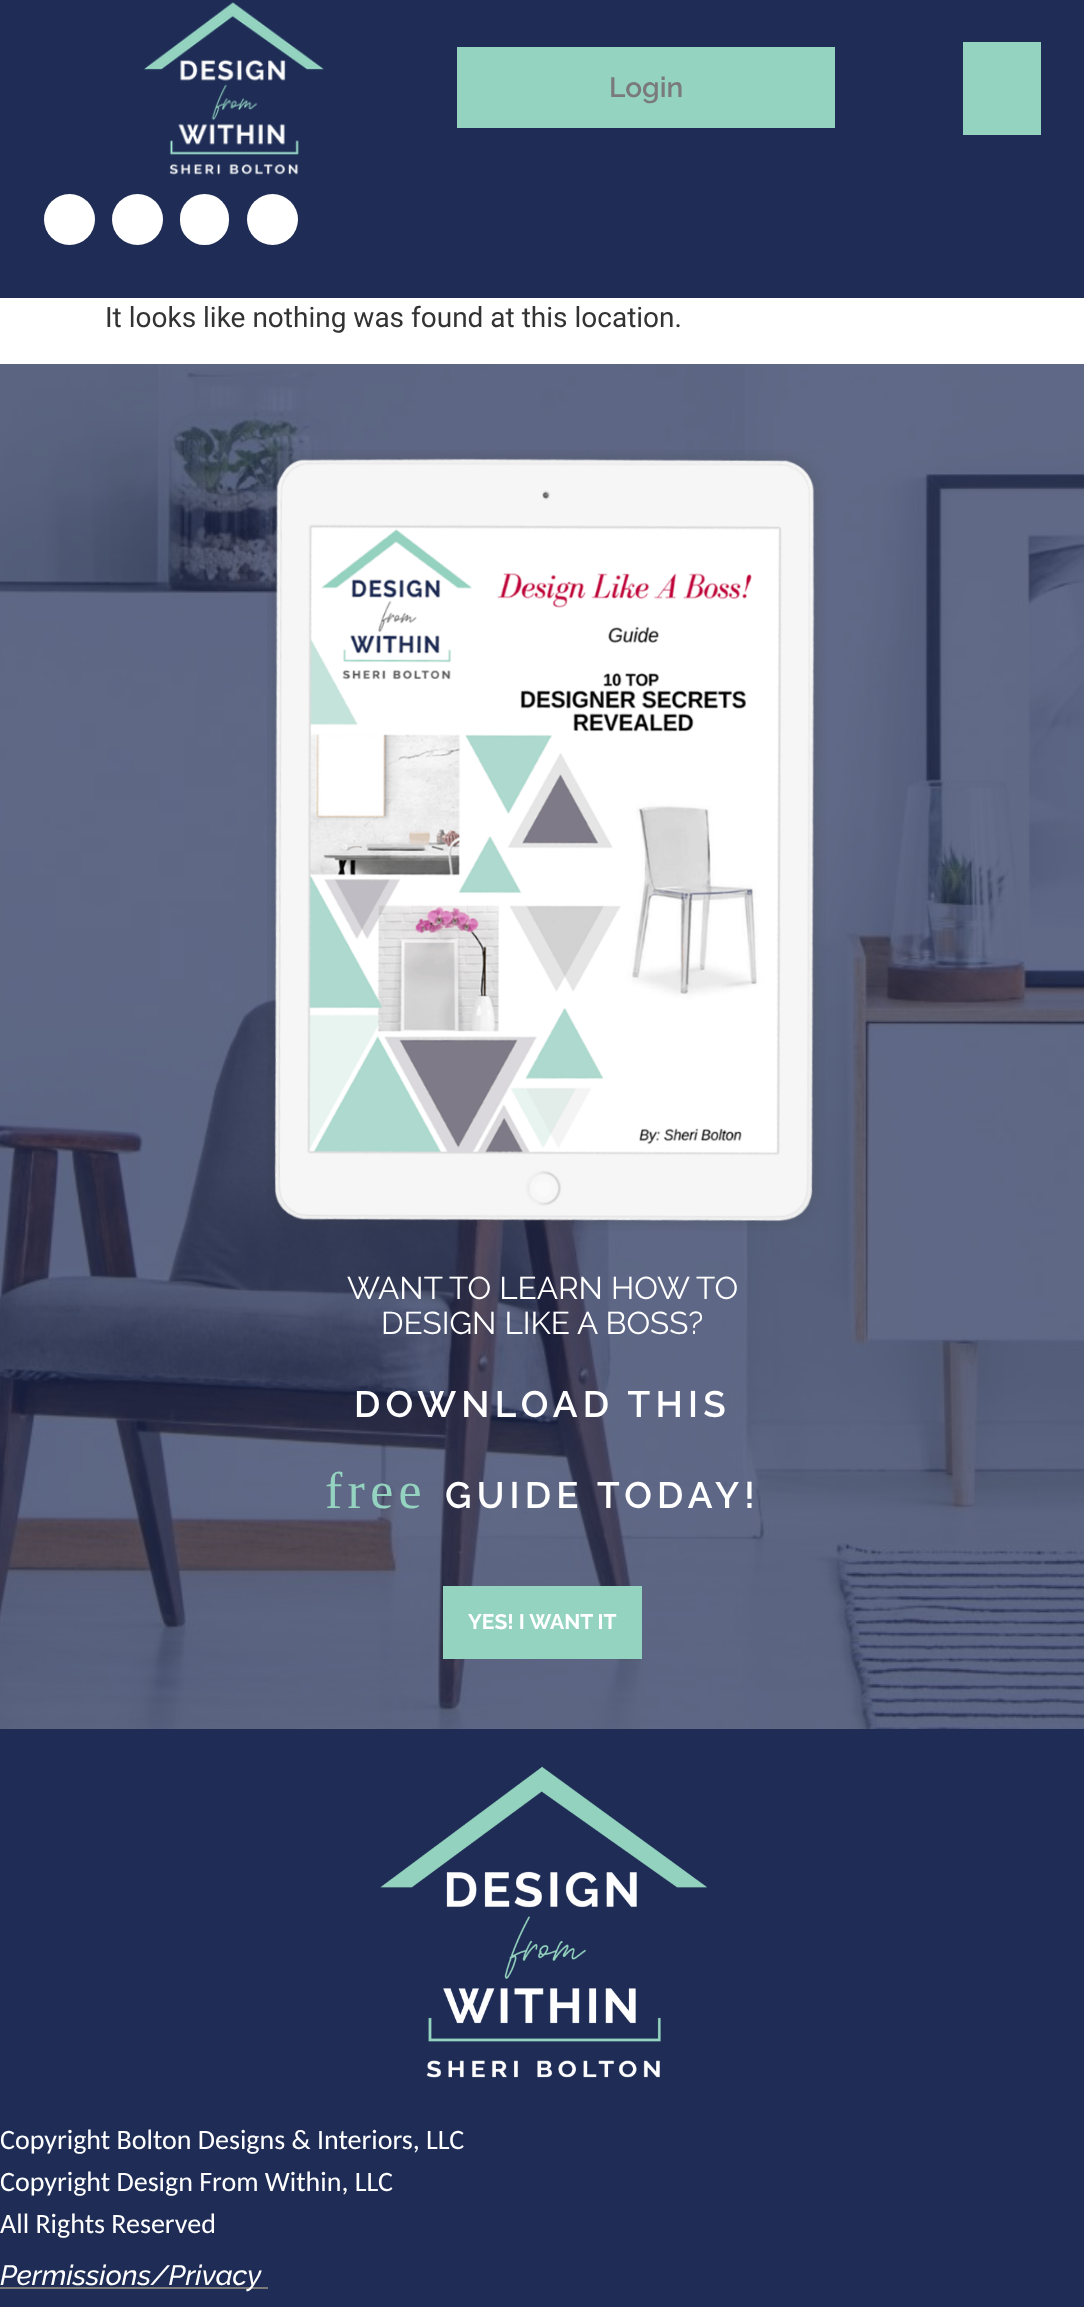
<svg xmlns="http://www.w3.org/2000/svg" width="1084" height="2307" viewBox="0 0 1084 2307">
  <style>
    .t1 { font: 600 28px Raleway; fill: #7a7a7a; }
    .t2 { font: 28px Roboto; fill: #333; }
    .t3 { font: 31.5px Raleway; fill: #fff; }
    .t4 { font: 600 36.75px Raleway; letter-spacing: 5.25px; fill: #fff; }
    .t5 { font: 52px Liberation Serif; letter-spacing: 5.25px; fill: #94d3bf; }
    .t6 { font: bold 21px Raleway; fill: #fff; }
    .t7 { font: 28px Carlito; fill: #fff; }
    .t8 { font: italic 500 28px Raleway; fill: #fff; }
  </style>
  <rect width="100%" height="100%" fill="#fff"/>
  <rect x="0" y="0" width="1084" height="298" fill="#1f2d56"/>
  <image x="144" y="2" width="180" height="173" href="images/1.png"/>
  <rect x="457" y="47" width="378" height="81" fill="#94d3c0"/>
  <text x="609" y="97" class="t1">Login</text>
  <rect x="963" y="42" width="78" height="93" fill="#94d3bf"/>
  <circle cx="69.5" cy="219.5" r="25.5" fill="#fff"/>
  <circle cx="137.5" cy="219.5" r="25.5" fill="#fff"/>
  <rect x="180" y="194" width="49" height="51" rx="24.5" fill="#fff"/>
  <circle cx="272.5" cy="219.5" r="25.5" fill="#fff"/>
  <text x="105" y="327" class="t2">It looks like nothing was found at this location.</text>
  <image x="0" y="364" width="1084" height="1365" href="images/2.png"/>
  <image x="267" y="450" width="559" height="781" href="images/3.png"/>
  <text x="347" y="1299" class="t3">WANT TO LEARN HOW TO</text>
  <text x="381" y="1334" class="t3">DESIGN LIKE A BOSS?</text>
  <text x="354" y="1417" class="t4">DOWNLOAD THIS</text>
  <text x="325" y="1508" class="t5">free</text>
  <text x="445" y="1508" class="t4">GUIDE TODAY!</text>
  <rect x="443" y="1586" width="199" height="73" fill="#94d3bf"/>
  <text x="468" y="1629" class="t6">YES! I WANT IT</text>
  <rect x="0" y="1729" width="1084" height="578" fill="#1f2d56"/>
  <image x="380" y="1766" width="327" height="312" href="images/4.png"/>
  <text x="0" y="2149" class="t7">Copyright Bolton Designs &amp; Interiors, LLC</text>
  <text x="0" y="2191" class="t7">Copyright Design From Within, LLC</text>
  <text x="0" y="2233" class="t7">All Rights Reserved</text>
  <rect x="0" y="2287" width="261" height="2" fill="#7a7a7a"/>
  <text x="0" y="2285" class="t8">Permissions/Privacy</text>
  <rect x="261" y="2287" width="7" height="2" fill="#7a7a7a"/>
</svg>
